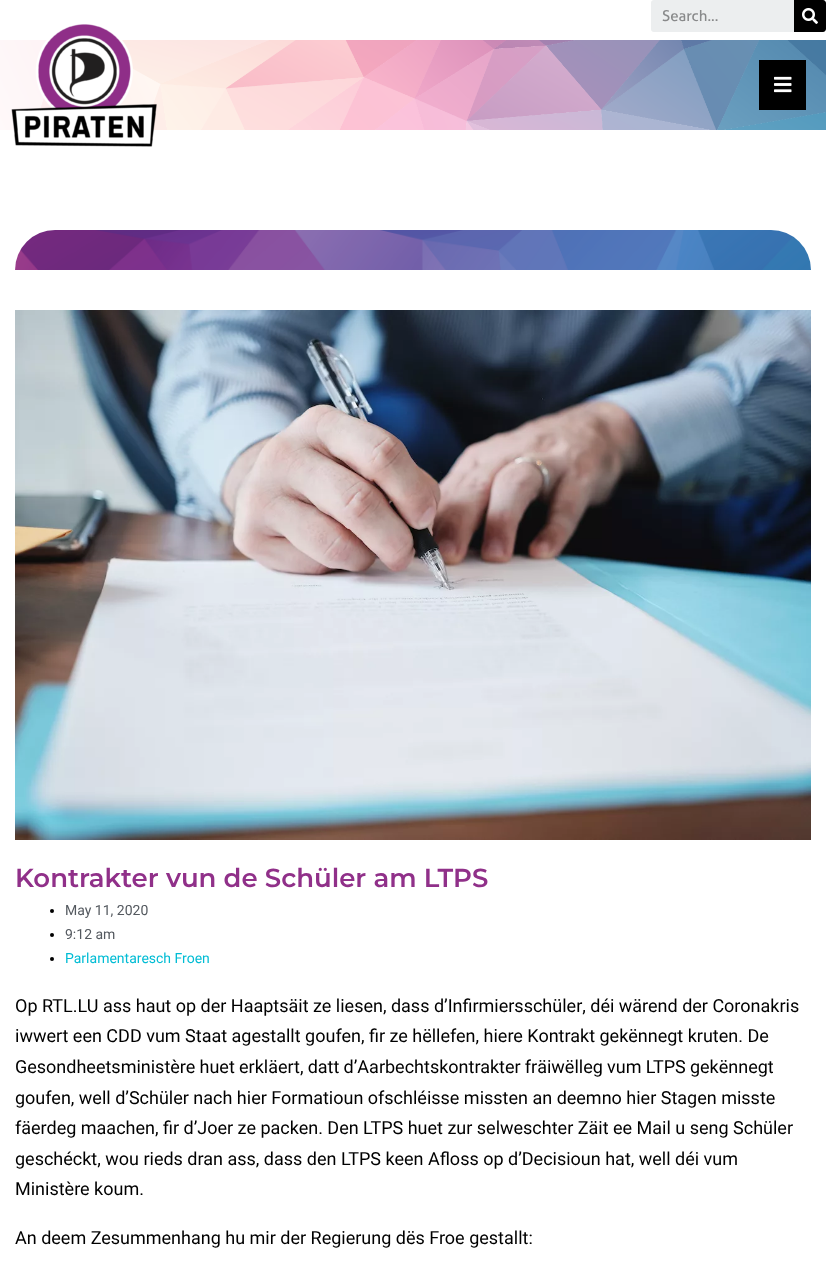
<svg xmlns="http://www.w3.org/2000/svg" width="826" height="1271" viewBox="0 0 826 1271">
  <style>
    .t1 { font: 15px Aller; fill: #88898a; }
    .t2 { font: 600 26px Montserrat; fill: #903089; }
    .t3 { font: 14px Roboto; fill: #54595f; }
    .t4 { font: 14px Roboto; fill: #00bcd4; }
    .t5 { font: 18px Roboto; fill: #000; }
  </style>
  <rect width="100%" height="100%" fill="#fff"/>
  <rect x="651" y="0" width="175" height="32" rx="3" fill="#eceeef"/>
  <text x="662" y="21" class="t1">Search...</text>
  <path d="M794 0H823C824.5 0 826 1.5 826 3V29C826 30.5 824.5 32 823 32H794Z" fill="#000"/>
  <image x="802" y="8" width="16" height="16" href="images/1.png"/>
  <image x="0" y="40" width="826" height="90" href="images/3.png"/>
  <image x="11" y="24" width="146" height="123" href="images/2.png"/>
  <rect x="759" y="60" width="47" height="50" fill="#000"/>
  <image x="774" y="76" width="18" height="17" href="images/4.png"/>
  <image x="15" y="230" width="796" height="40" href="images/5.png"/>
  <image x="15" y="310" width="796" height="530" href="images/6.png"/>
  <text x="15" y="887" class="t2">Kontrakter vun de Schüler am LTPS</text>
  <circle cx="52" cy="911" r="2" fill="#000"/>
  <text x="65" y="915" class="t3">May 11, 2020</text>
  <circle cx="52" cy="935" r="2" fill="#000"/>
  <text x="65" y="939" class="t3">9:12 am</text>
  <circle cx="52" cy="959" r="2" fill="#000"/>
  <text x="65" y="963" class="t4">Parlamentaresch Froen</text>
  <text x="15" y="1012" class="t5">Op RTL.LU ass haut op der Haaptsäit ze liesen, dass d’Infirmiersschüler, déi wärend der Coronakris</text>
  <text x="15" y="1042" class="t5">iwwert een CDD vum Staat agestallt goufen, fir ze hëllefen, hiere Kontrakt gekënnegt kruten. De</text>
  <text x="15" y="1073" word-spacing="-0.25" class="t5">Gesondheetsministère huet erkläert, datt d’Aarbechtskontrakter fräiwëlleg vum LTPS gekënnegt</text>
  <text x="15" y="1104" class="t5">goufen, well d’Schüler nach hier Formatioun ofschléisse missten an deemno hier Stagen misste</text>
  <text x="15" y="1134" class="t5">fäerdeg maachen, fir d’Joer ze packen. Den LTPS huet zur selweschter Zäit ee Mail u seng Schüler</text>
  <text x="15" y="1165" class="t5">geschéckt, wou rieds dran ass, dass den LTPS keen Afloss op d’Decisioun hat, well déi vum</text>
  <text x="15" y="1195" class="t5">Ministère koum.</text>
  <text x="15" y="1244" class="t5">An deem Zesummenhang hu mir der Regierung dës Froe gestallt:</text>
</svg>
